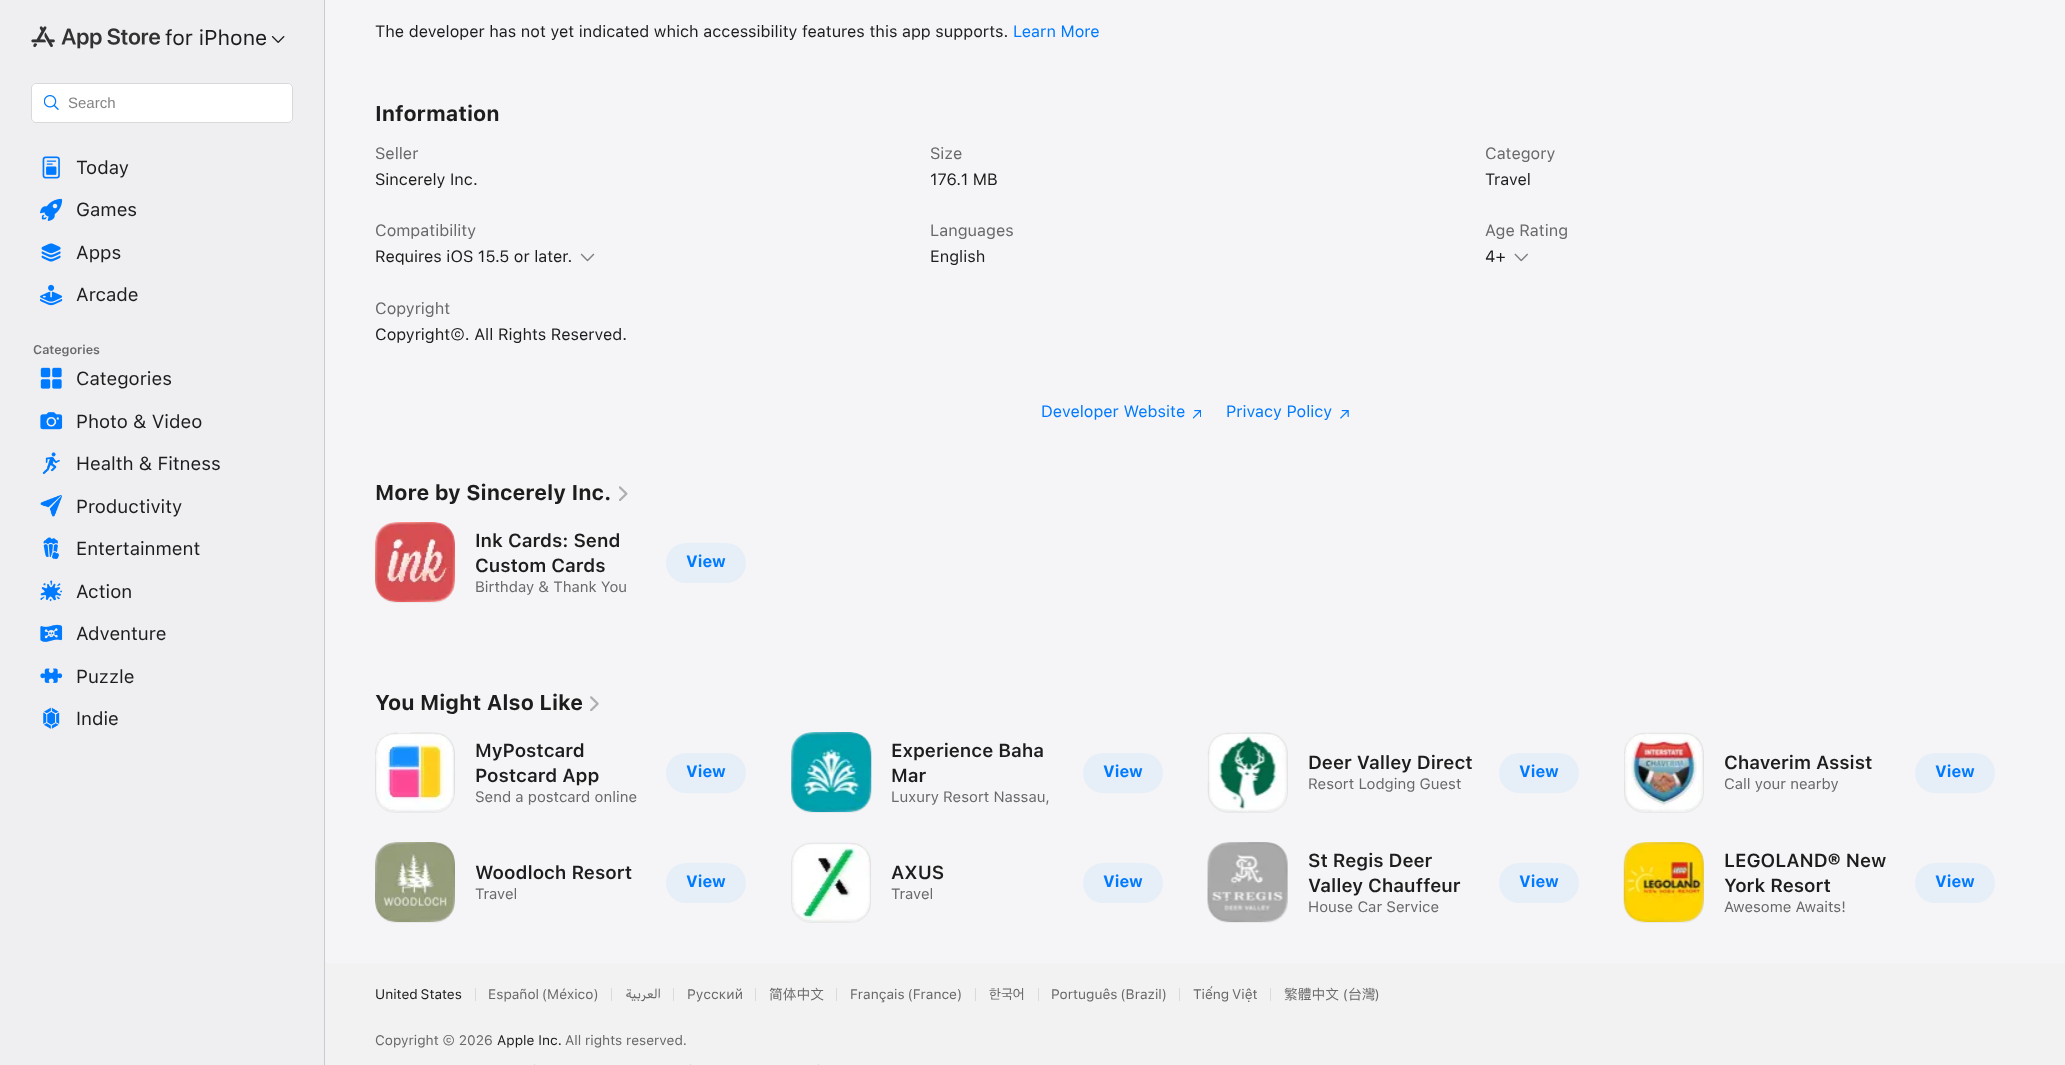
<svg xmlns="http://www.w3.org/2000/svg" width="2065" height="1065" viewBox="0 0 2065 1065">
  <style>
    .t1 { font: 21.25px SF; fill: #1d1d1d; }
    .t2 { font: 15px Liberation Sans; fill: #858585; }
    .t3 { font: 18.75px SF; fill: #1d1d1d; }
    .t4 { font: 600 12.5px SF; fill: #69696a; }
    .t5 { font: 16.25px SF; fill: #1d1d1d; }
    .t6 { font: 16.25px SF; fill: #007aff; }
    .t7 { font: bold 21.25px SF; fill: #1d1d1d; }
    .t8 { font: 16.25px SF; fill: #69696a; }
    .t9 { font: 600 18.75px SF; fill: #1d1d1d; }
    .t10 { font: 15px SF; fill: #69696a; }
    .t11 { font: bold 16.25px SF; fill: #007aff; }
    .t12 { font: 13.75px SF; fill: #1d1d1d; }
    .t13 { font: 13.75px SF; fill: #69696a; }
    .t14 { font: 13.75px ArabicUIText; direction: rtl; fill: #69696a; }
    .t15 { font: 13.75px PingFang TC; fill: #69696a; }
    .t16 { font: 13.75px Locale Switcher; fill: #69696a; }
    .t17 { font: 13.75px 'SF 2'; fill: #69696a; }
  </style>
  <rect width="100%" height="100%" fill="#f5f5f7"/>
  <rect x="0" y="0" width="324" height="1065" fill="#efeff2"/>
  <rect x="324" y="0" width="1" height="1065" fill="#cbcbce"/>
  <image x="31" y="26" width="129" height="23" href="images/1.png"/>
  <text x="165" y="45" class="t1">for iPhone</text>
  <image x="271" y="36" width="14" height="7" href="images/2.png"/>
  <rect x="31" y="83" width="262" height="40" rx="5" fill="#fff"/>
  <rect x="31.5" y="83.5" width="261" height="39" rx="4.5" fill="none" stroke="#00000026"/>
  <image x="44" y="95" width="15" height="15" href="images/3.png"/>
  <text x="68" y="108" class="t2">Search</text>
  <image x="42" y="156" width="18" height="23" href="images/4.png"/>
  <text x="76" y="174" class="t3">Today</text>
  <image x="40" y="198" width="23" height="23" href="images/5.png"/>
  <text x="76" y="216" class="t3">Games</text>
  <image x="41" y="243" width="20" height="19" href="images/6.png"/>
  <text x="76" y="259" class="t3">Apps</text>
  <image x="40" y="284" width="23" height="22" href="images/7.png"/>
  <text x="76" y="301" class="t3">Arcade</text>
  <text x="33" y="354" class="t4">Categories</text>
  <image x="40" y="367" width="22" height="22" href="images/8.png"/>
  <text x="76" y="385" class="t3">Categories</text>
  <image x="40" y="412" width="23" height="18" href="images/9.png"/>
  <text x="76" y="428" class="t3">Photo &amp; Video</text>
  <image x="42" y="452" width="18" height="22" href="images/10.png"/>
  <text x="76" y="470" class="t3">Health &amp; Fitness</text>
  <image x="40" y="495" width="22" height="22" href="images/11.png"/>
  <text x="76" y="513" class="t3">Productivity</text>
  <image x="43" y="537" width="16" height="22" href="images/12.png"/>
  <text x="76" y="555" class="t3">Entertainment</text>
  <image x="40" y="580" width="22" height="22" href="images/13.png"/>
  <text x="76" y="598" class="t3">Action</text>
  <image x="40" y="624" width="23" height="18" href="images/14.png"/>
  <text x="76" y="640" class="t3">Adventure</text>
  <image x="40" y="668" width="23" height="15" href="images/15.png"/>
  <text x="76" y="683" class="t3">Puzzle</text>
  <image x="43" y="707" width="17" height="22" href="images/16.png"/>
  <text x="76" y="725" class="t3">Indie</text>
  <text x="375" y="37" class="t5">The developer has not yet indicated which accessibility features this app supports.</text>
  <text x="1013" y="37" class="t6">Learn More</text>
  <text x="375" y="121" class="t7">Information</text>
  <text x="375" y="159" class="t8">Seller</text>
  <text x="375" y="185" class="t5">Sincerely Inc.</text>
  <text x="930" y="159" class="t8">Size</text>
  <text x="930" y="185" class="t5">176.1 MB</text>
  <text x="1485" y="159" class="t8">Category</text>
  <text x="1485" y="185" class="t5">Travel</text>
  <text x="375" y="236" class="t8">Compatibility</text>
  <text x="375" y="262" class="t5">Requires iOS 15.5 or later.</text>
  <image x="580" y="253" width="15" height="9" href="images/17.png"/>
  <text x="930" y="236" class="t8">Languages</text>
  <text x="930" y="262" class="t5">English</text>
  <text x="1485" y="236" class="t8">Age Rating</text>
  <text x="1485" y="262" class="t5">4+</text>
  <image x="1514" y="253" width="14" height="9" href="images/18.png"/>
  <text x="375" y="314" class="t8">Copyright</text>
  <text x="375" y="340" class="t5">Copyright©. All Rights Reserved.</text>
  <text x="1041" y="417" class="t6">Developer Website</text>
  <image x="1193" y="410" width="8" height="9" href="images/19.png"/>
  <text x="1226" y="417" class="t6">Privacy Policy</text>
  <image x="1340" y="410" width="9" height="9" href="images/20.png"/>
  <text x="375" y="500" class="t7">More by Sincerely Inc.</text>
  <image x="619" y="486" width="9" height="15" href="images/21.png"/>
  <image x="375" y="522" width="80" height="80" href="images/22.png"/>
  <rect x="375.5" y="523.5" width="79" height="79" rx="19.5" fill="none" stroke="#8080801a"/>
  <text x="475" y="547" class="t9">Ink Cards: Send</text>
  <text x="475" y="572" class="t9">Custom Cards</text>
  <text x="475" y="592" class="t10">Birthday &amp; Thank You</text>
  <rect x="666" y="543" width="80" height="40" rx="20" fill="#e6eef7"/>
  <text x="686" y="567" class="t11">View</text>
  <text x="375" y="710" class="t7">You Might Also Like</text>
  <image x="590" y="696" width="9" height="15" href="images/23.png"/>
  <image x="375" y="732" width="80" height="80" href="images/24.png"/>
  <rect x="375.5" y="733.5" width="79" height="79" rx="19.5" fill="none" stroke="#8080801a"/>
  <text x="475" y="757" class="t9">MyPostcard</text>
  <text x="475" y="782" class="t9">Postcard App</text>
  <text x="475" y="802" class="t10">Send a postcard online</text>
  <rect x="666" y="753" width="80" height="40" rx="20" fill="#e6eef7"/>
  <text x="686" y="777" class="t11">View</text>
  <image x="791" y="732" width="81" height="80" href="images/25.png"/>
  <rect x="791.5" y="733.5" width="79" height="79" rx="19.5" fill="none" stroke="#8080801a"/>
  <text x="891" y="757" class="t9">Experience Baha</text>
  <text x="891" y="782" class="t9">Mar</text>
  <text x="891" y="802" class="t10">Luxury Resort Nassau,</text>
  <rect x="1083" y="753" width="80" height="40" rx="20" fill="#e6eef7"/>
  <text x="1103" y="777" class="t11">View</text>
  <image x="1207" y="732" width="81" height="80" href="images/26.png"/>
  <rect x="1208.5" y="733.5" width="79" height="79" rx="19.5" fill="none" stroke="#8080801a"/>
  <text x="1308" y="769" class="t9">Deer Valley Direct</text>
  <text x="1308" y="789" class="t10">Resort Lodging Guest</text>
  <rect x="1499" y="753" width="80" height="40" rx="20" fill="#e6eef7"/>
  <text x="1519" y="777" class="t11">View</text>
  <image x="1624" y="732" width="80" height="80" href="images/27.png"/>
  <rect x="1624.5" y="733.5" width="79" height="79" rx="19.5" fill="none" stroke="#8080801a"/>
  <text x="1724" y="769" class="t9">Chaverim Assist</text>
  <text x="1724" y="789" class="t10">Call your nearby</text>
  <rect x="1915" y="753" width="80" height="40" rx="20" fill="#e6eef7"/>
  <text x="1935" y="777" class="t11">View</text>
  <image x="375" y="842" width="80" height="80" href="images/28.png"/>
  <rect x="375.5" y="843.5" width="79" height="79" rx="19.5" fill="none" stroke="#8080801a"/>
  <text x="475" y="879" class="t9">Woodloch Resort</text>
  <text x="475" y="899" class="t10">Travel</text>
  <rect x="666" y="863" width="80" height="40" rx="20" fill="#e6eef7"/>
  <text x="686" y="887" class="t11">View</text>
  <image x="791" y="842" width="80" height="80" href="images/29.png"/>
  <rect x="791.5" y="843.5" width="79" height="79" rx="19.5" fill="none" stroke="#8080801a"/>
  <text x="891" y="879" class="t9">AXUS</text>
  <text x="891" y="899" class="t10">Travel</text>
  <rect x="1083" y="863" width="80" height="40" rx="20" fill="#e6eef7"/>
  <text x="1103" y="887" class="t11">View</text>
  <image x="1207" y="842" width="81" height="80" href="images/30.png"/>
  <rect x="1208.5" y="843.5" width="79" height="79" rx="19.5" fill="none" stroke="#8080801a"/>
  <text x="1308" y="867" class="t9">St Regis Deer</text>
  <text x="1308" y="892" class="t9">Valley Chauffeur</text>
  <text x="1308" y="912" class="t10">House Car Service</text>
  <rect x="1499" y="863" width="80" height="40" rx="20" fill="#e6eef7"/>
  <text x="1519" y="887" class="t11">View</text>
  <image x="1623" y="842" width="81" height="80" href="images/31.png"/>
  <rect x="1624.5" y="843.5" width="79" height="79" rx="19.5" fill="none" stroke="#8080801a"/>
  <text x="1724" y="867" class="t9">LEGOLAND® New</text>
  <text x="1724" y="892" class="t9">York Resort</text>
  <text x="1724" y="912" class="t10">Awesome Awaits!</text>
  <rect x="1915" y="863" width="80" height="40" rx="20" fill="#e6eef7"/>
  <text x="1935" y="887" class="t11">View</text>
  <rect x="325" y="963" width="1740" height="102" fill="#f2f2f2"/>
  <text x="375" y="999" word-spacing="-1" class="t12">United States</text>
  <rect x="475" y="988" width="1" height="13" fill="#dadada"/>
  <text x="488" y="999" word-spacing="-1" class="t13">Español (México)</text>
  <rect x="611" y="988" width="1" height="13" fill="#dadada"/>
  <text x="661" y="999" class="t14">العربية</text>
  <rect x="673" y="988" width="1" height="13" fill="#dadada"/>
  <text x="687" y="999" class="t13">Русский</text>
  <rect x="755" y="988" width="1" height="13" fill="#dadada"/>
  <text x="769" y="999" class="t15">简体中文</text>
  <rect x="836" y="988" width="1" height="13" fill="#dadada"/>
  <text x="850" y="999" word-spacing="-1" class="t13">Français (France)</text>
  <rect x="975" y="988" width="1" height="13" fill="#dadada"/>
  <text x="989" y="999" class="t16">한국어</text>
  <rect x="1038" y="988" width="1" height="13" fill="#dadada"/>
  <text x="1051" y="999" word-spacing="-1" class="t13">Português (Brazil)</text>
  <rect x="1179" y="988" width="1" height="13" fill="#dadada"/>
  <text x="1193" y="999" word-spacing="-1" class="t13">Tiếng Việt</text>
  <rect x="1270" y="988" width="1" height="13" fill="#dadada"/>
  <text x="1284" y="999" class="t15">繁體中文</text>
  <text x="1343" y="999" class="t17">(</text>
  <text x="1348" y="999" class="t15">台灣</text>
  <text x="1375" y="999" class="t17">)</text>
  <text x="375" y="1045" class="t13">Copyright © 2026</text>
  <text x="497" y="1045" class="t12">Apple Inc.</text>
  <text x="565" y="1045" class="t13">All rights reserved.</text>
  <rect x="534" y="1064" width="1" height="1" fill="#dadada"/>
  <rect x="690" y="1064" width="1" height="1" fill="#dadada"/>
  <rect x="818" y="1064" width="1" height="1" fill="#dadada"/>
</svg>
